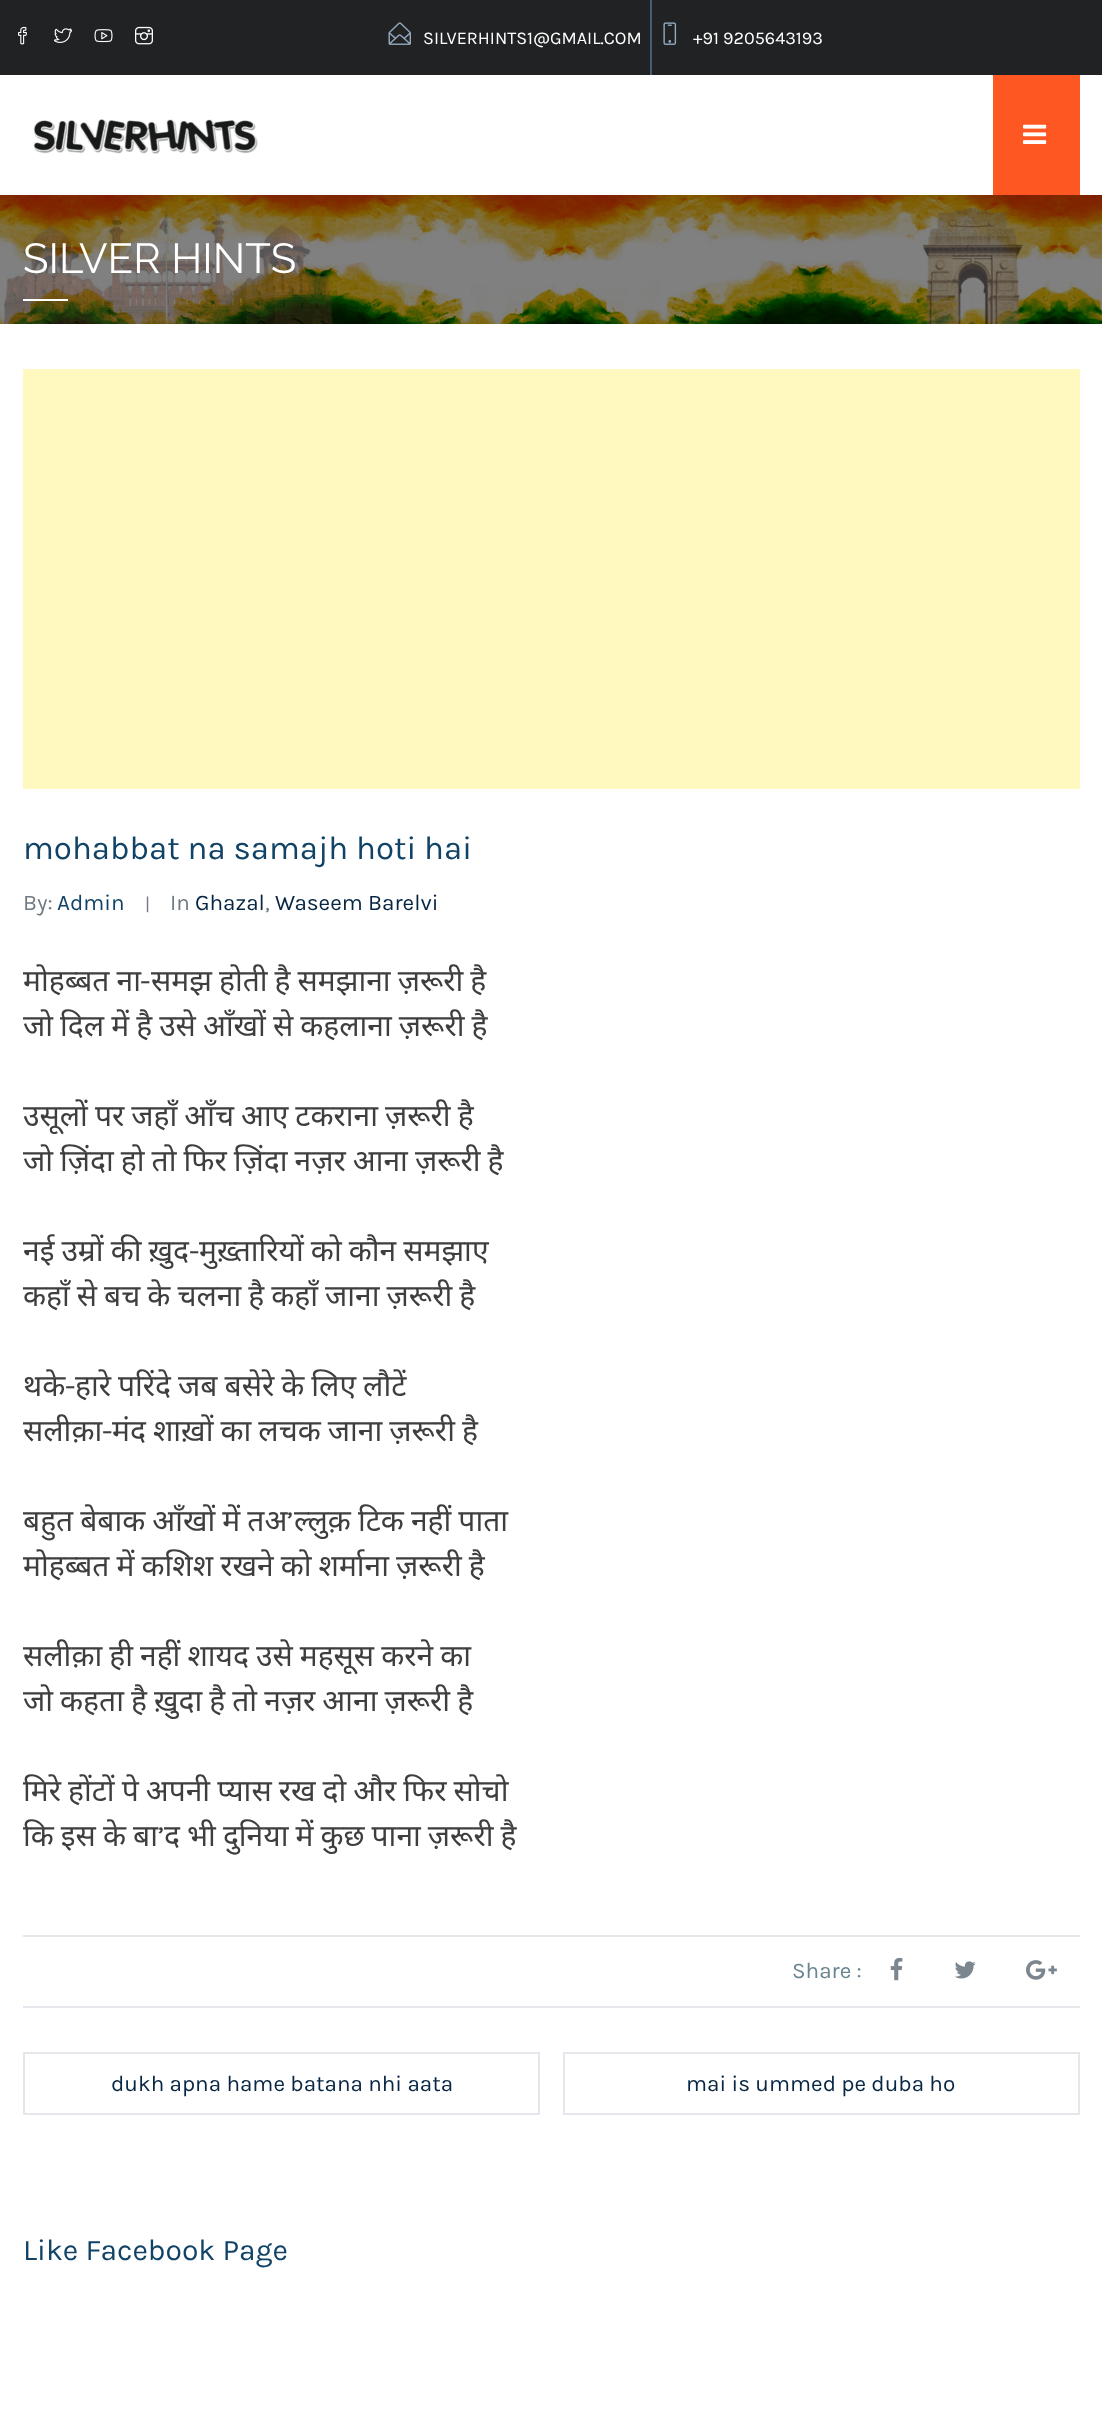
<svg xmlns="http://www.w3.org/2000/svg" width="1102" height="2412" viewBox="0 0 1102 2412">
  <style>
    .t1 { font: 18px Karla; fill: #fff; }
    .t2 { font: 42px Raleway; fill: #fff; }
    .t3 { font: 33px Karla; fill: #114366; }
    .t4 { font: 22.5px Karla; fill: #707b84; }
    .t5 { font: 22.5px Karla; fill: #114366; }
    .t6 { font: 18px Karla; fill: #707b84; }
    .t7 { font: 22.5px Karla; fill: #072643; }
    .t8 { font: 30px Noto Sans; fill: #3e3e3e; }
    .t9 { font: 30px Karla; fill: #3e3e3e; }
    .t10 { font: 22.5px Karla; fill: #698591; }
    .t11 { font: 30px Karla; fill: #114366; }
  </style>
  <rect width="100%" height="100%" fill="#fff"/>
  <rect x="0" y="0" width="1102" height="75" fill="#212223"/>
  <image x="18" y="26" width="9" height="19" href="images/1.png"/>
  <image x="54" y="28" width="18" height="15" href="images/2.png"/>
  <image x="94" y="29" width="19" height="14" href="images/3.png"/>
  <image x="135" y="26" width="18" height="19" href="images/4.png"/>
  <image x="388" y="22" width="23" height="23" href="images/5.png"/>
  <text x="423" y="44" class="t1">SILVERHINTS1@GMAIL.COM</text>
  <rect x="650" y="0" width="2" height="75" fill="#455e77"/>
  <image x="663" y="22" width="14" height="23" href="images/6.png"/>
  <text x="693" y="44" class="t1">+91 9205643193</text>
  <image x="33" y="119" width="225" height="35" href="images/7.png"/>
  <rect x="993" y="75" width="87" height="120" fill="#fe5722"/>
  <image x="1023" y="124" width="24" height="20" href="images/8.png"/>
  <image x="0" y="195" width="1102" height="129" href="images/9.png"/>
  <text x="23" y="273" class="t2">SILVER HINTS</text>
  <rect x="23" y="299" width="45" height="2" fill="#fff"/>
  <rect x="23" y="369" width="1057" height="420" fill="#fff9c0"/>
  <text x="23" y="859" class="t3">mohabbat na samajh hoti hai</text>
  <text x="23" y="910" class="t4">By:</text>
  <text x="57" y="910" class="t5">Admin</text>
  <text x="145" y="910" class="t6">|</text>
  <text x="170" y="910" class="t4">In</text>
  <text x="195" y="910" class="t7">Ghazal</text>
  <text x="265" y="910" class="t4">,</text>
  <text x="275" y="910" class="t7">Waseem Barelvi</text>
  <text x="23" y="991" word-spacing="-0.75" class="t8">मोहब्बत ना</text>
  <text x="140" y="991" class="t9">-</text>
  <text x="151" y="991" word-spacing="-0.75" class="t8">समझ होती है समझाना ज़रूरी है</text>
  <text x="23" y="1036" word-spacing="-0.75" class="t8">जो दिल में है उसे आँखों से कहलाना ज़रूरी है</text>
  <text x="23" y="1126" word-spacing="-0.75" class="t8">उसूलों पर जहाँ आँच आए टकराना ज़रूरी है</text>
  <text x="23" y="1171" word-spacing="-0.75" class="t8">जो ज़िंदा हो तो फिर ज़िंदा नज़र आना ज़रूरी है</text>
  <text x="23" y="1261" word-spacing="-0.75" class="t8">नई उम्रों की ख़ुद</text>
  <text x="189" y="1261" class="t9">-</text>
  <text x="199" y="1261" word-spacing="-0.75" class="t8">मुख़्तारियों को कौन समझाए</text>
  <text x="23" y="1306" word-spacing="-0.75" class="t8">कहाँ से बच के चलना है कहाँ जाना ज़रूरी है</text>
  <text x="23" y="1396" class="t8">थके</text>
  <text x="65" y="1396" class="t9">-</text>
  <text x="75" y="1396" word-spacing="-0.75" class="t8">हारे परिंदे जब बसेरे के लिए लौटें</text>
  <text x="23" y="1441" class="t8">सलीक़ा</text>
  <text x="102" y="1441" class="t9">-</text>
  <text x="112" y="1441" word-spacing="-0.75" class="t8">मंद शाख़ों का लचक जाना ज़रूरी है</text>
  <text x="23" y="1531" word-spacing="-0.75" class="t8">बहुत बेबाक आँखों में तअ</text>
  <text x="287" y="1531" class="t9">’</text>
  <text x="294" y="1531" word-spacing="-0.75" class="t8">ल्लुक़ टिक नहीं पाता</text>
  <text x="23" y="1576" word-spacing="-0.75" class="t8">मोहब्बत में कशिश रखने को शर्माना ज़रूरी है</text>
  <text x="23" y="1666" word-spacing="-0.75" class="t8">सलीक़ा ही नहीं शायद उसे महसूस करने का</text>
  <text x="23" y="1711" word-spacing="-0.75" class="t8">जो कहता है ख़ुदा है तो नज़र आना ज़रूरी है</text>
  <text x="23" y="1801" word-spacing="-0.75" class="t8">मिरे होंटों पे अपनी प्यास रख दो और फिर सोचो</text>
  <text x="23" y="1846" word-spacing="-0.75" class="t8">कि इस के बा</text>
  <text x="158" y="1846" class="t9">’</text>
  <text x="164" y="1846" word-spacing="-0.75" class="t8">द भी दुनिया में कुछ पाना ज़रूरी है</text>
  <rect x="23" y="1935" width="1057" height="2" fill="#e5e7ed"/>
  <rect x="23" y="2006" width="1057" height="2" fill="#e5e7ed"/>
  <text x="792" y="1978" class="t10">Share :</text>
  <image x="890" y="1957" width="13" height="24" href="images/10.png"/>
  <image x="954" y="1961" width="22" height="18" href="images/11.png"/>
  <image x="1026" y="1960" width="31" height="20" href="images/12.png"/>
  <rect x="24" y="2053" width="515" height="61" fill="none" stroke="#e5e7ed" stroke-width="2"/>
  <text x="111" y="2091" class="t7">dukh apna hame batana nhi aata</text>
  <rect x="564" y="2053" width="515" height="61" fill="none" stroke="#e5e7ed" stroke-width="2"/>
  <text x="686" y="2091" class="t7">mai is ummed pe duba ho</text>
  <text x="23" y="2260" class="t11">Like Facebook Page</text>
</svg>
